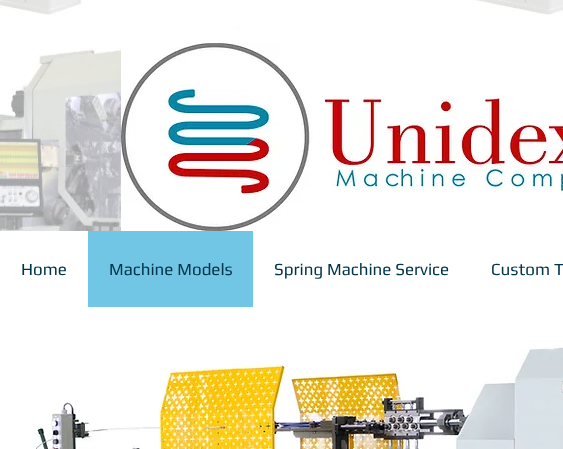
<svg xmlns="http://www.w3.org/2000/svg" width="563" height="449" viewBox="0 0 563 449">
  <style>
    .t1 { font: 17px Play; fill: #003448; }
  </style>
  <rect width="100%" height="100%" fill="#fff"/>
  <image x="0" y="0" width="563" height="231" href="images/1.png"/>
  <image x="121" y="43" width="442" height="188" href="images/2.png"/>
  <text x="21" y="275" class="t1">Home</text>
  <rect x="88" y="231" width="165" height="76" fill="#72c6e5"/>
  <text x="109" y="275" class="t1">Machine Models</text>
  <text x="274" y="275" class="t1">Spring Machine Service</text>
  <text x="491" y="275" class="t1">Custom T</text>
  <image x="0" y="313" width="563" height="136" href="images/3.png"/>
</svg>
